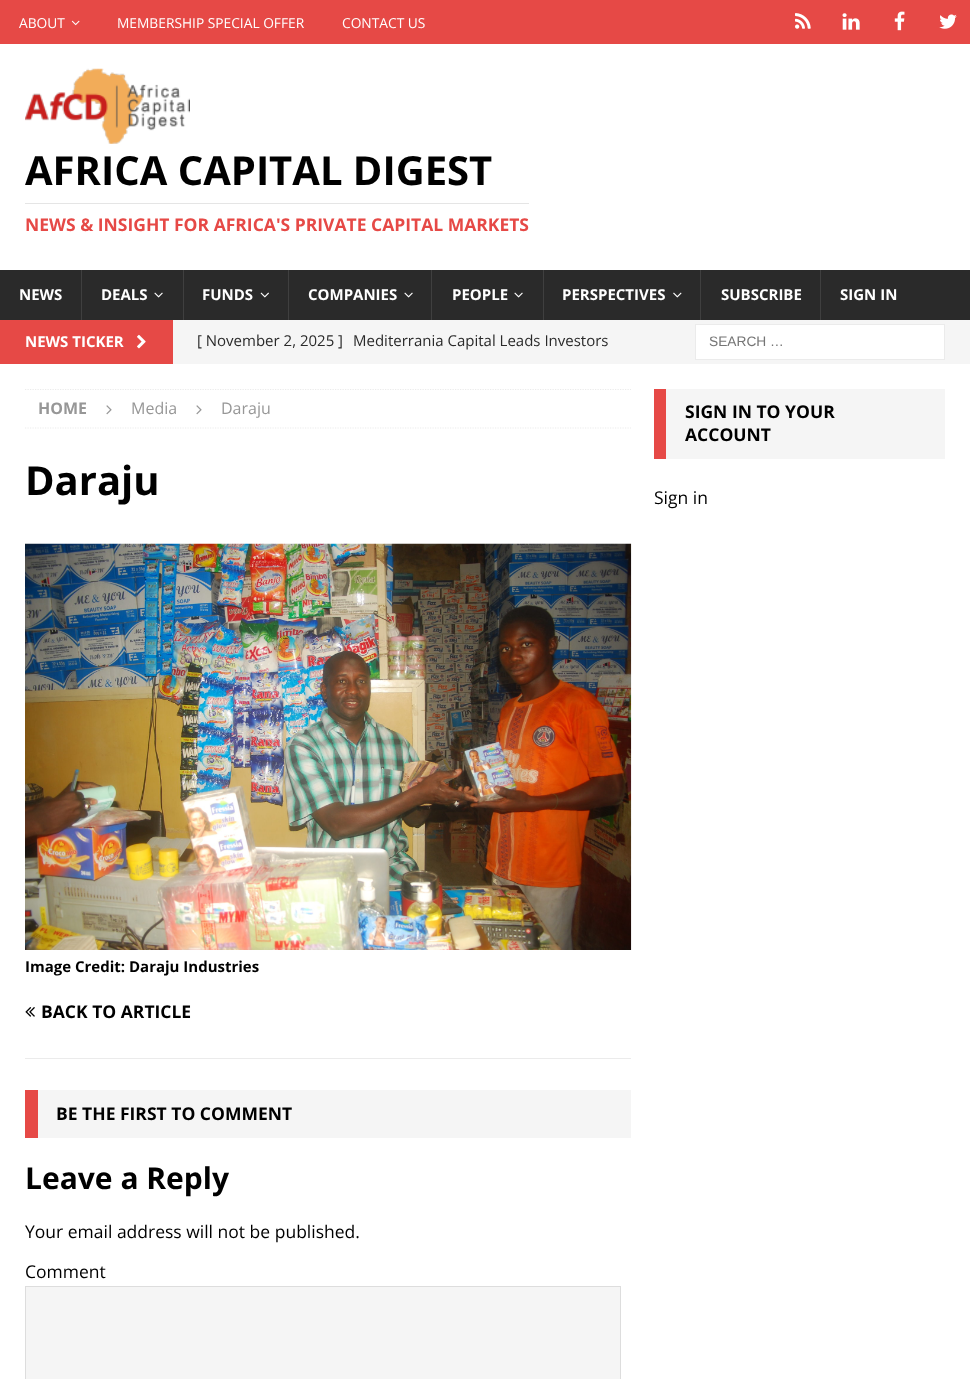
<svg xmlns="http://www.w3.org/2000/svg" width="970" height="1379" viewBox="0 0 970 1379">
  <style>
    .t1 { font: 13.75px Open Sans; fill: #fff; }
    .t2 { font: bold 40px Open Sans; fill: #000; }
    .t3 { font: bold 17.5px Open Sans; fill: #e64946; }
    .t4 { font: bold 15px Open Sans; fill: #fff; }
    .t5 { font: 15px Open Sans; fill: #2a2a2a; }
    .t6 { font: 13.75px Liberation Sans; fill: #757575; }
    .t7 { font: bold 16px Open Sans; fill: #979797; }
    .t8 { font: 16px Open Sans; fill: #979797; }
    .t9 { font: bold 15px Open Sans; fill: #000; }
    .t10 { font: bold 17.5px Open Sans; fill: #000; }
    .t11 { font: bold 30px Open Sans; fill: #000; }
    .t12 { font: 17.5px Open Sans; fill: #000; }
  </style>
  <defs>
    <clipPath id="clip1"><rect x="25" y="389" width="606" height="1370"/></clipPath>
  </defs>
  <rect width="100%" height="100%" fill="#e64946"/>
  <text x="19" y="28" class="t1">ABOUT</text>
  <image x="71" y="20" width="9" height="6" href="images/1.png"/>
  <text x="117" y="28" class="t1">MEMBERSHIP SPECIAL OFFER</text>
  <text x="342" y="28" class="t1">CONTACT US</text>
  <image x="795" y="13" width="16" height="16" href="images/2.png"/>
  <image x="842" y="13" width="18" height="17" href="images/3.png"/>
  <image x="894" y="11" width="11" height="20" href="images/4.png"/>
  <image x="939" y="14" width="18" height="15" href="images/5.png"/>
  <rect x="0" y="44" width="970" height="226" fill="#fff"/>
  <image x="25" y="68" width="165" height="76" href="images/6.png"/>
  <text x="25" y="185" class="t2">AFRICA CAPITAL DIGEST</text>
  <rect x="25" y="203" width="504" height="1" fill="#e5e5e5"/>
  <text x="25" y="231" class="t3">NEWS &amp; INSIGHT FOR AFRICA'S PRIVATE CAPITAL MARKETS</text>
  <rect x="0" y="270" width="970" height="50" fill="#2a2a2a"/>
  <text x="19" y="300" class="t4">NEWS</text>
  <rect x="81" y="270" width="1" height="50" fill="#3f3f3f"/>
  <text x="101" y="300" class="t4">DEALS</text>
  <image x="154" y="292" width="9" height="6" href="images/7.png"/>
  <rect x="183" y="270" width="1" height="50" fill="#3f3f3f"/>
  <text x="202" y="300" class="t4">FUNDS</text>
  <image x="260" y="292" width="9" height="6" href="images/8.png"/>
  <rect x="288" y="270" width="1" height="50" fill="#3f3f3f"/>
  <text x="308" y="300" class="t4">COMPANIES</text>
  <image x="404" y="292" width="9" height="6" href="images/7.png"/>
  <rect x="431" y="270" width="1" height="50" fill="#3f3f3f"/>
  <text x="452" y="300" class="t4">PEOPLE</text>
  <image x="514" y="292" width="9" height="6" href="images/7.png"/>
  <rect x="543" y="270" width="1" height="50" fill="#3f3f3f"/>
  <text x="562" y="300" class="t4">PERSPECTIVES</text>
  <image x="673" y="292" width="9" height="6" href="images/9.png"/>
  <rect x="700" y="270" width="1" height="50" fill="#3f3f3f"/>
  <text x="721" y="300" class="t4">SUBSCRIBE</text>
  <rect x="820" y="270" width="1" height="50" fill="#3f3f3f"/>
  <text x="840" y="300" class="t4">SIGN IN</text>
  <rect x="173" y="320" width="797" height="44" fill="#f5f5f5"/>
  <text x="25" y="347" class="t4">NEWS TICKER</text>
  <image x="137" y="334" width="9" height="15" href="images/10.png"/>
  <text x="197" y="346" class="t5">[ November 2, 2025 ]</text>
  <text x="353" y="346" class="t5">Mediterrania Capital Leads Investors</text>
  <rect x="695.5" y="324.5" width="249" height="35" fill="#fff" stroke="#ebebeb"/>
  <text x="709" y="346" class="t6">SEARCH …</text>
  <rect x="0" y="364" width="970" height="1015" fill="#fff"/>
  <g clip-path="url(#clip1)">
    <path d="M25 389.5H631" fill="none" stroke="#ebebeb" stroke-width="1.2" stroke-dasharray="1.25 1.25"/>
  </g>
  <path d="M25 428H631" fill="none" stroke="#ebebeb" stroke-width="1.2" stroke-dasharray="1.25 1.25"/>
  <text x="38" y="414" class="t7">HOME</text>
  <image x="106" y="405" width="6" height="10" href="images/11.png"/>
  <text x="131" y="414" class="t8">Media</text>
  <image x="196" y="405" width="6" height="10" href="images/11.png"/>
  <text x="221" y="414" class="t8">Daraju</text>
  <text x="25" y="495" class="t2">Daraju</text>
  <image x="25" y="543" width="607" height="407" href="images/12.png"/>
  <text x="25" y="972" class="t9">Image Credit: Daraju Industries</text>
  <rect x="25" y="1058" width="606" height="1" fill="#ebebeb"/>
  <image x="25" y="1007" width="10" height="10" href="images/13.png"/>
  <text x="41" y="1018" class="t10">BACK TO ARTICLE</text>
  <rect x="38" y="1090" width="593" height="48" fill="#f5f5f5"/>
  <rect x="25" y="1090" width="13" height="48" fill="#e64946"/>
  <text x="56" y="1120" class="t10">BE THE FIRST TO COMMENT</text>
  <text x="25" y="1189" class="t11">Leave a Reply</text>
  <text x="25" y="1238" class="t12">Your email address will not be published.</text>
  <text x="25" y="1278" class="t12">Comment</text>
  <rect x="25.5" y="1286.5" width="595" height="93" fill="#f5f5f5" stroke="#ddd"/>
  <rect x="666" y="389" width="279" height="70" fill="#f5f5f5"/>
  <rect x="654" y="389" width="12" height="70" fill="#e64946"/>
  <text x="685" y="418" class="t10">SIGN IN TO YOUR</text>
  <text x="685" y="441" class="t10">ACCOUNT</text>
  <text x="654" y="504" class="t12">Sign in</text>
</svg>
